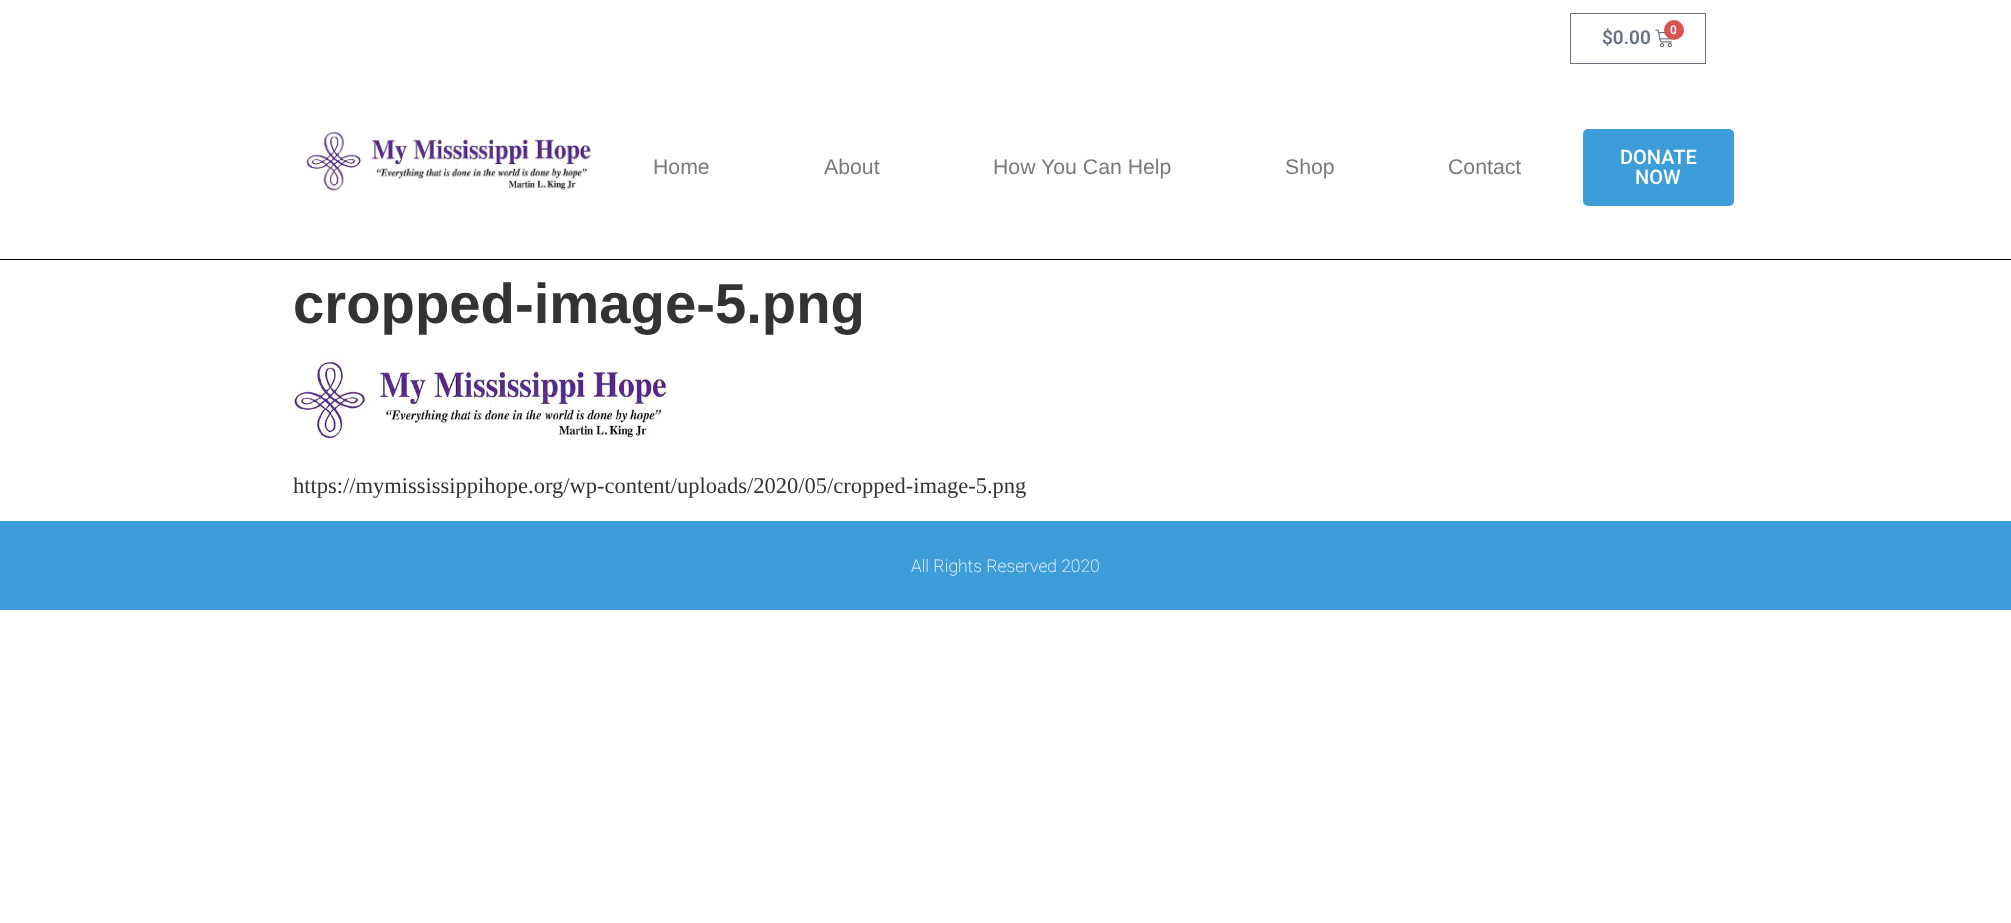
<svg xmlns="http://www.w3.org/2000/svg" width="2011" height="923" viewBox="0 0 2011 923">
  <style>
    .t1 { font: 600 19px Roboto; fill: #69727d; }
    .t2 { font: 600 12px Roboto; fill: #fff; }
    .t3 { font: 21.25px Liberation Sans; fill: #7a7a7a; }
    .t4 { font: 500 20px Roboto; fill: #fff; }
    .t5 { font: bold 56.25px Liberation Sans; fill: #333; }
    .t6 { font: 22.5px Liberation Serif; fill: #333; }
    .t7 { font: 200 17.5px Roboto; fill: #fff; }
  </style>
  <rect width="100%" height="100%" fill="#fff"/>
  <rect x="1570.5" y="13.5" width="135" height="50" fill="none" stroke="#69727d"/>
  <text x="1602" y="44" class="t1">$0.00</text>
  <image x="1655" y="29" width="17" height="19" href="images/1.png"/>
  <circle cx="1674" cy="30" r="10" fill="#d9534f"/>
  <text x="1670" y="34" class="t2">0</text>
  <rect x="0" y="259" width="2011" height="1" fill="#000"/>
  <image x="306" y="129" width="285" height="63" href="images/2.png"/>
  <text x="653" y="174" class="t3">Home</text>
  <text x="824" y="174" class="t3">About</text>
  <text x="993" y="174" class="t3">How You Can Help</text>
  <text x="1285" y="174" class="t3">Shop</text>
  <text x="1448" y="174" class="t3">Contact</text>
  <rect x="1583" y="129" width="151" height="77" rx="5" fill="#3d9dd9"/>
  <text x="1620" y="164" class="t4">DONATE</text>
  <text x="1635" y="184" class="t4">NOW</text>
  <text x="293" y="323" class="t5">cropped-image-5.png</text>
  <image x="293" y="358" width="374" height="82" href="images/3.png"/>
  <text x="293" y="493" class="t6">https://mymississippihope.org/wp-content/uploads/2020/05/cropped-image-5.png</text>
  <rect x="0" y="521" width="2011" height="89" fill="#3d9dd9"/>
  <text x="911" y="572" class="t7">All Rights Reserved 2020</text>
</svg>
